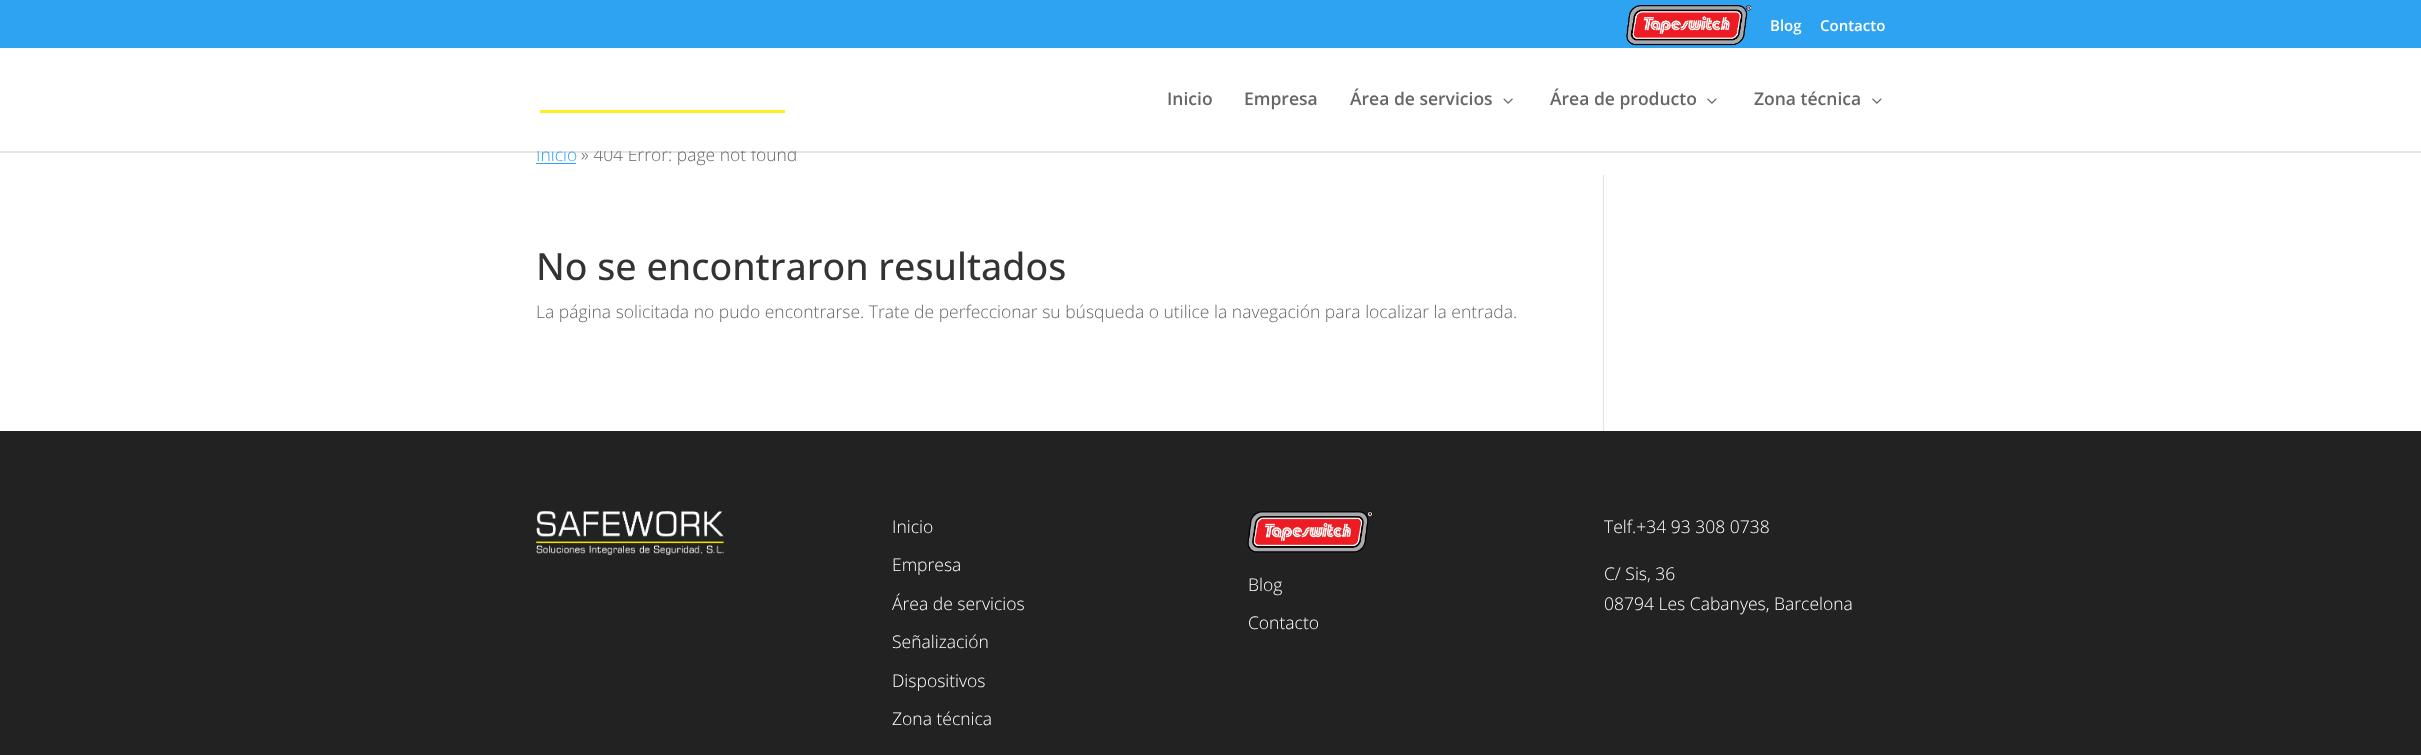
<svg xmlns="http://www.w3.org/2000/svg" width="2421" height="755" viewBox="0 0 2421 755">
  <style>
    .t1 { font: 600 15px Open Sans; fill: #fff; }
    .t2 { font: 300 17.5px Open Sans; fill: #2ea3f2; }
    .t3 { font: 300 17.5px Open Sans; fill: #666; }
    .t4 { font: 600 17.5px Open Sans; fill: #666; }
    .t5 { font: 500 37.5px Open Sans; fill: #333; }
    .t6 { font: 300 17.5px Open Sans; fill: #fff; }
  </style>
  <rect width="100%" height="100%" fill="#fff"/>
  <rect x="0" y="0" width="2421" height="48" fill="#2ea3f2"/>
  <image x="1626" y="5" width="125" height="41" href="images/1.png"/>
  <text x="1770" y="31" class="t1">Blog</text>
  <text x="1820" y="31" class="t1">Contacto</text>
  <rect x="0" y="151" width="2421" height="2" fill="#0000001a"/>
  <text x="536" y="161" class="t2">Inicio</text>
  <text x="581" y="161" class="t3">» 404 Error: page not found</text>
  <rect x="537" y="147" width="260" height="4" fill="#fff"/>
  <text x="1167" y="105" class="t4">Inicio</text>
  <text x="1244" y="105" class="t4">Empresa</text>
  <text x="1350" y="105" class="t4">Área de servicios</text>
  <image x="1503" y="98" width="10" height="6" href="images/2.png"/>
  <text x="1550" y="105" class="t4">Área de producto</text>
  <image x="1707" y="98" width="10" height="6" href="images/3.png"/>
  <text x="1754" y="105" class="t4">Zona técnica</text>
  <image x="1872" y="98" width="10" height="6" href="images/3.png"/>
  <rect x="540" y="110" width="245" height="3" fill="#feef24"/>
  <rect x="536" y="163" width="40" height="1" fill="#2ea3f2"/>
  <text x="536" y="280" class="t5">No se encontraron resultados</text>
  <text x="536" y="318" class="t3">La página solicitada no pudo encontrarse. Trate de perfeccionar su búsqueda o utilice la navegación para localizar la entrada.</text>
  <rect x="1603" y="175" width="1" height="256" fill="#e2e2e2"/>
  <rect x="0" y="431" width="2421" height="324" fill="#222"/>
  <image x="536" y="511" width="188" height="44" href="images/4.png"/>
  <text x="892" y="533" class="t6">Inicio</text>
  <text x="892" y="571" class="t6">Empresa</text>
  <text x="892" y="610" class="t6">Área de servicios</text>
  <text x="892" y="648" class="t6">Señalización</text>
  <text x="892" y="687" class="t6">Dispositivos</text>
  <text x="892" y="725" class="t6">Zona técnica</text>
  <image x="1247" y="511" width="126" height="42" href="images/5.png"/>
  <text x="1248" y="591" class="t6">Blog</text>
  <text x="1248" y="629" class="t6">Contacto</text>
  <text x="1604" y="533" class="t6">Telf.+34 93 308 0738</text>
  <text x="1604" y="580" class="t6">C/ Sis, 36</text>
  <text x="1604" y="610" class="t6">08794 Les Cabanyes, Barcelona</text>
</svg>
